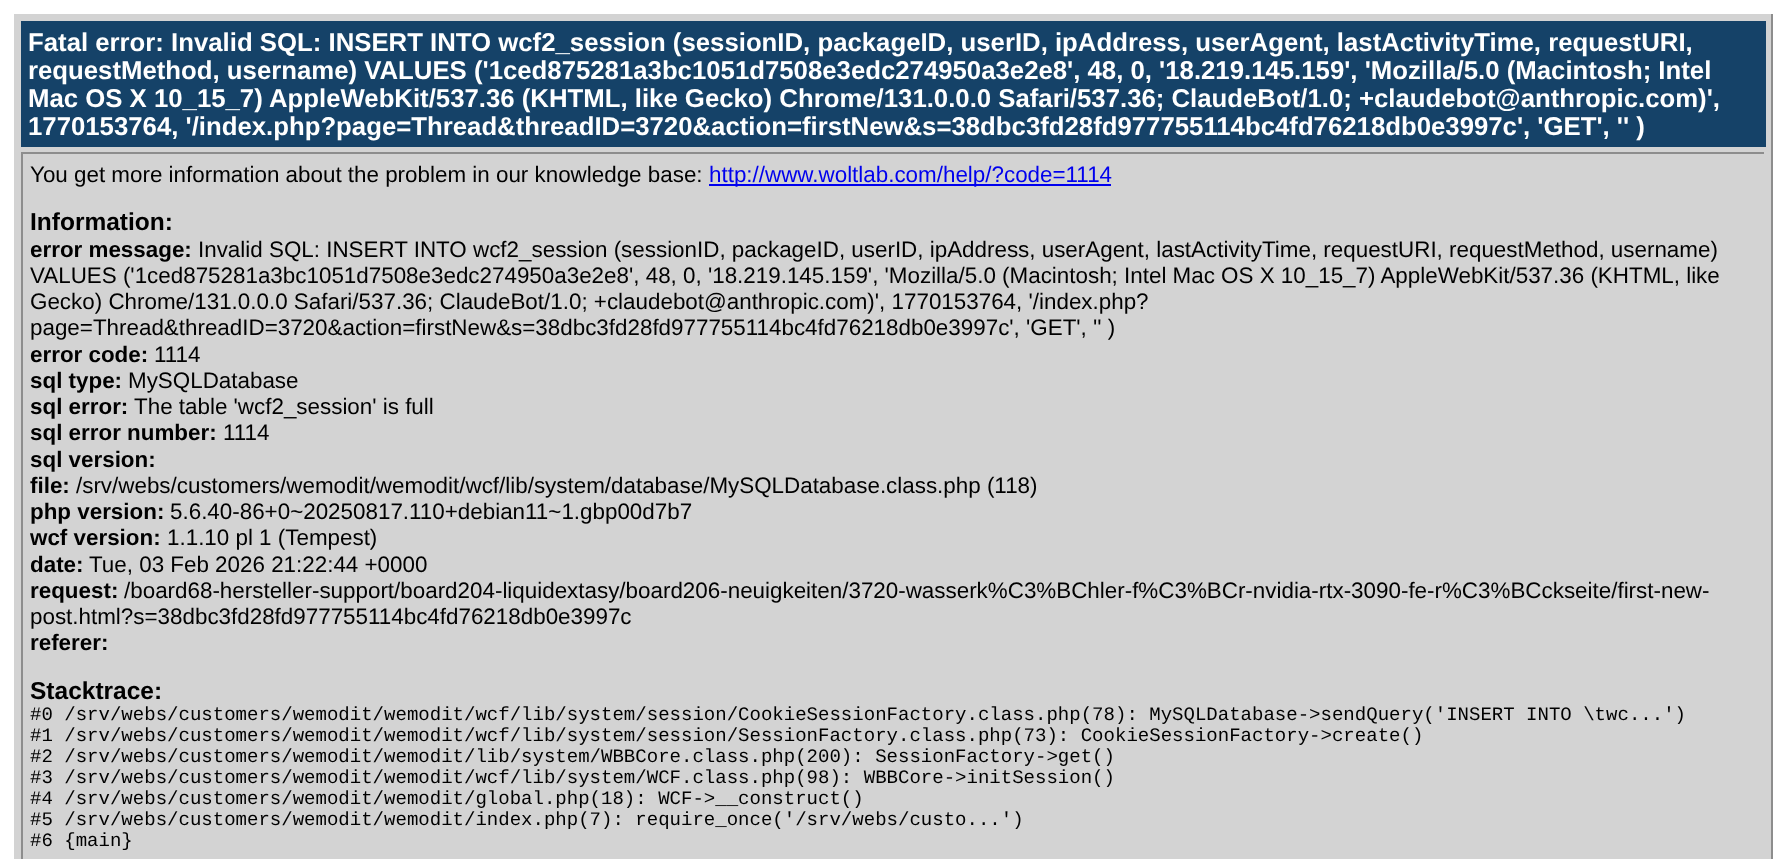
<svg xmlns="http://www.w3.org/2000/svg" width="1786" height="859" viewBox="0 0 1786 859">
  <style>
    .t1 { font: bold 25.75px Liberation Sans; fill: #fff; }
    .t2 { font: 22.4px Liberation Sans; fill: #000; }
    .t3 { font: 22.4px Liberation Sans; fill: #00e; }
    .t4 { font: bold 24.5px Liberation Sans; fill: #000; }
    .t5 { font: bold 22.4px Liberation Sans; fill: #000; }
    .t6 { font: 19.05px Liberation Mono; fill: #000; }
  </style>
  <rect width="100%" height="100%" fill="#fff"/>
  <rect x="14" y="14" width="1757" height="845" fill="#d3d3d3"/>
  <rect x="1771" y="14" width="2" height="845" fill="#8d8d8d"/>
  <rect x="21" y="21" width="1745" height="126" fill="#154268"/>
  <text x="28" y="51" class="t1">Fatal error: Invalid SQL: INSERT INTO wcf2_session (sessionID, packageID, userID, ipAddress, userAgent, lastActivityTime, requestURI,</text>
  <text x="28" y="79" class="t1">requestMethod, username) VALUES ('1ced875281a3bc1051d7508e3edc274950a3e2e8', 48, 0, '18.219.145.159', 'Mozilla/5.0 (Macintosh; Intel</text>
  <text x="28" y="107" class="t1">Mac OS X 10_15_7) AppleWebKit/537.36 (KHTML, like Gecko) Chrome/131.0.0.0 Safari/537.36; ClaudeBot/1.0; +claudebot@anthropic.com)',</text>
  <text x="28" y="135" class="t1">1770153764, '/index.php?page=Thread&amp;threadID=3720&amp;action=firstNew&amp;s=38dbc3fd28fd977755114bc4fd76218db0e3997c', 'GET', '' )</text>
  <rect x="21" y="152" width="1745" height="2" fill="#8d8d8d"/>
  <rect x="1764" y="152" width="2" height="2" fill="#d3d3d3"/>
  <rect x="21" y="152" width="2" height="707" fill="#8d8d8d"/>
  <text x="30" y="182" class="t2">You get more information about the problem in our knowledge base:</text>
  <rect x="709" y="184" width="402" height="2" fill="#00e"/>
  <text x="709" y="182" class="t3">http://www.woltlab.com/help/?code=1114</text>
  <text x="30" y="230" class="t4">Information:</text>
  <text x="30" y="257" class="t5">error message:</text>
  <text x="198" y="257" class="t2">Invalid SQL: INSERT INTO wcf2_session (sessionID, packageID, userID, ipAddress, userAgent, lastActivityTime, requestURI, requestMethod, username)</text>
  <text x="30" y="283" class="t2">VALUES ('1ced875281a3bc1051d7508e3edc274950a3e2e8', 48, 0, '18.219.145.159', 'Mozilla/5.0 (Macintosh; Intel Mac OS X 10_15_7) AppleWebKit/537.36 (KHTML, like</text>
  <text x="30" y="309" class="t2">Gecko) Chrome/131.0.0.0 Safari/537.36; ClaudeBot/1.0; +claudebot@anthropic.com)', 1770153764, '/index.php?</text>
  <text x="30" y="335" class="t2">page=Thread&amp;threadID=3720&amp;action=firstNew&amp;s=38dbc3fd28fd977755114bc4fd76218db0e3997c', 'GET', '' )</text>
  <text x="30" y="362" class="t5">error code:</text>
  <text x="154" y="362" class="t2">1114</text>
  <text x="30" y="388" class="t5">sql type:</text>
  <text x="128" y="388" class="t2">MySQLDatabase</text>
  <text x="30" y="414" class="t5">sql error:</text>
  <text x="134" y="414" class="t2">The table 'wcf2_session' is full</text>
  <text x="30" y="440" class="t5">sql error number:</text>
  <text x="223" y="440" class="t2">1114</text>
  <text x="30" y="467" class="t5">sql version:</text>
  <text x="30" y="493" class="t5">file:</text>
  <text x="76" y="493" class="t2">/srv/webs/customers/wemodit/wemodit/wcf/lib/system/database/MySQLDatabase.class.php (118)</text>
  <text x="30" y="519" class="t5">php version:</text>
  <text x="170" y="519" class="t2">5.6.40-86+0~20250817.110+debian11~1.gbp00d7b7</text>
  <text x="30" y="545" class="t5">wcf version:</text>
  <text x="167" y="545" class="t2">1.1.10 pl 1 (Tempest)</text>
  <text x="30" y="572" class="t5">date:</text>
  <text x="89" y="572" class="t2">Tue, 03 Feb 2026 21:22:44 +0000</text>
  <text x="30" y="598" class="t5">request:</text>
  <text x="124" y="598" class="t2">/board68-hersteller-support/board204-liquidextasy/board206-neuigkeiten/3720-wasserk%C3%BChler-f%C3%BCr-nvidia-rtx-3090-fe-r%C3%BCckseite/first-new-</text>
  <text x="30" y="624" class="t2">post.html?s=38dbc3fd28fd977755114bc4fd76218db0e3997c</text>
  <text x="30" y="650" class="t5">referer:</text>
  <text x="30" y="699" class="t4">Stacktrace:</text>
  <text x="30" y="720" class="t6">#0 /srv/webs/customers/wemodit/wemodit/wcf/lib/system/session/CookieSessionFactory.class.php(78): MySQLDatabase-&gt;sendQuery('INSERT INTO \twc...')</text>
  <text x="30" y="741" class="t6">#1 /srv/webs/customers/wemodit/wemodit/wcf/lib/system/session/SessionFactory.class.php(73): CookieSessionFactory-&gt;create()</text>
  <text x="30" y="762" class="t6">#2 /srv/webs/customers/wemodit/wemodit/lib/system/WBBCore.class.php(200): SessionFactory-&gt;get()</text>
  <text x="30" y="783" class="t6">#3 /srv/webs/customers/wemodit/wemodit/wcf/lib/system/WCF.class.php(98): WBBCore-&gt;initSession()</text>
  <text x="30" y="804" class="t6">#4 /srv/webs/customers/wemodit/wemodit/global.php(18): WCF-&gt;__construct()</text>
  <text x="30" y="825" class="t6">#5 /srv/webs/customers/wemodit/wemodit/index.php(7): require_once('/srv/webs/custo...')</text>
  <text x="30" y="846" class="t6">#6 {main}</text>
</svg>
